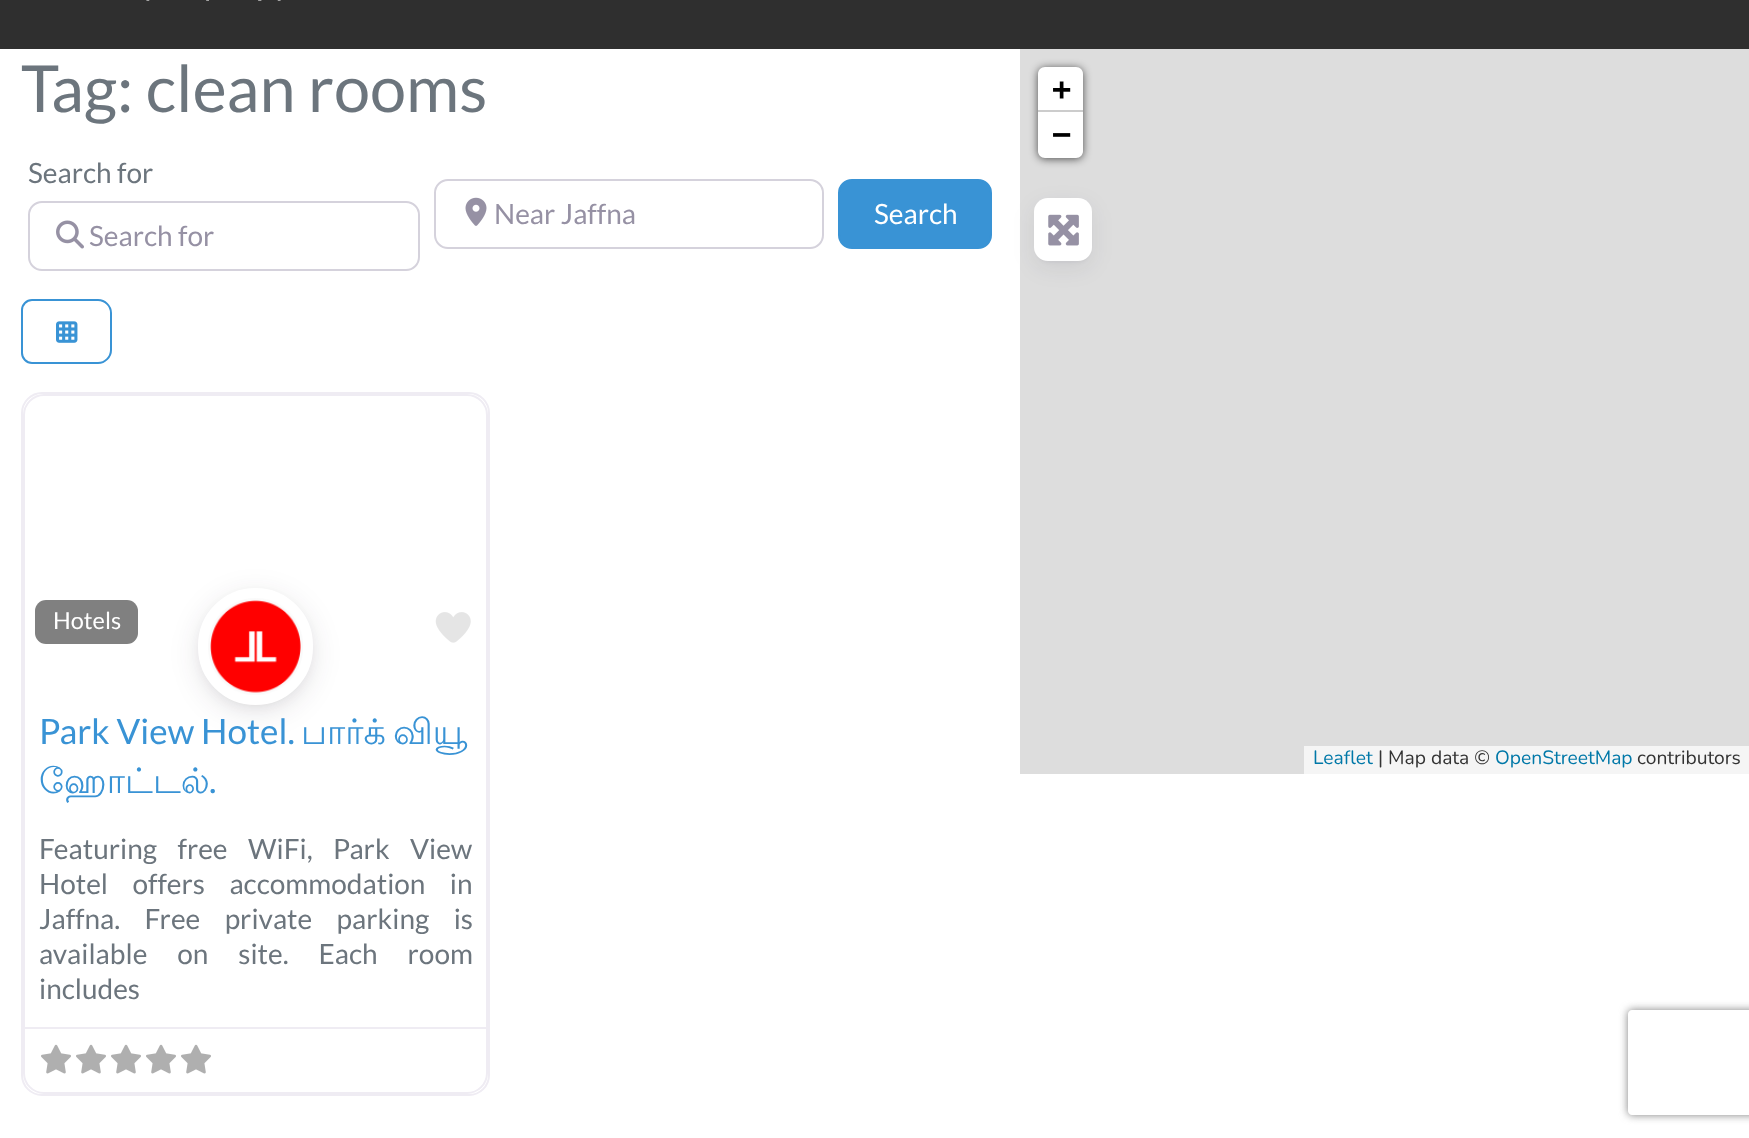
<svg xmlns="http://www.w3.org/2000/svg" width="1749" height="1138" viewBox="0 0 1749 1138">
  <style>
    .t1 { font: 64.75px Lato; fill: #6c757d; }
    .t2 { font: 28px Lato; fill: #6c757d; }
    .t3 { font: 28px Lato; fill: #9691a4; }
    .t4 { font: 28px Lato; fill: #fff; }
    .t5 { font: 23.5px Lato; fill: #fff; }
    .t6 { font: 35px Lato; fill: #3993d5; }
    .t7 { font: 35px Lohit Tamil; fill: #3993d5; }
    .t8 { font: bold 32px DejaVu Sans Mono; fill: #000; }
    .t9 { font: 19.25px Nunito; fill: #0078a8; }
    .t10 { font: 19.25px Nunito; fill: #333; }
  </style>
  <defs>
    <clipPath id="clip1"><path d="M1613 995H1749V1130H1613ZM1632 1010H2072C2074 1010 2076 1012 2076 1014V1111C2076 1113 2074 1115 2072 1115H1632C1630 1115 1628 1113 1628 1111V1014C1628 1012 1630 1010 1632 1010Z" clip-rule="evenodd"/></clipPath>
  </defs>
  <rect width="100%" height="100%" fill="#fff"/>
  <rect x="0" y="0" width="1749" height="49" fill="#2f2f2f"/>
  <image x="146" y="0" width="135" height="1" href="images/1.png"/>
  <text x="21" y="112" class="t1">Tag: clean rooms</text>
  <text x="28" y="183" class="t2">Search for</text>
  <rect x="29" y="202" width="390" height="68" rx="13" fill="none" stroke="#d5d2dc" stroke-width="2"/>
  <image x="56" y="220" width="28" height="29" href="images/2.png"/>
  <text x="89" y="246" class="t3">Search for</text>
  <rect x="435" y="180" width="388" height="68" rx="13" fill="none" stroke="#d5d2dc" stroke-width="2"/>
  <image x="465" y="197" width="22" height="29" href="images/3.png"/>
  <text x="494" y="224" class="t3">Near Jaffna</text>
  <rect x="839" y="180" width="152" height="68" rx="13" fill="#3993d5" stroke="#3993d5" stroke-width="2"/>
  <text x="874" y="224" class="t4">Search</text>
  <path d="M32 300H98C105 300 111 306 111 313V350C111 357 105 363 98 363H32C26.5 363 22 358.5 22 353V310C22 304.5 26.5 300 32 300Z" fill="none" stroke="#3993d5" stroke-width="2"/>
  <image x="56" y="321" width="22" height="22" href="images/4.png"/>
  <rect x="22" y="393" width="467" height="702" rx="20" fill="none" stroke="#efecf3" stroke-width="2"/>
  <rect x="24" y="395" width="463" height="698" rx="20" fill="none" stroke="#efecf3" stroke-width="2"/>
  <rect x="35" y="600" width="103" height="44" rx="11" fill="#808080"/>
  <text x="53" y="629" class="t5">Hotels</text>
  <image x="435" y="612" width="36" height="31" href="images/5.png"/>
  <rect x="198" y="595" width="115" height="117" rx="57.5" fill="#1f1b2d1f" filter="blur(14px)"/>
  <rect x="205" y="599" width="101" height="103" rx="50.5" fill="#1f1b2d1f" filter="blur(7px)"/>
  <rect x="201.5" y="591.5" width="108" height="110" rx="54" fill="#fff" stroke="#fff" stroke-width="7"/>
  <image x="208" y="598" width="95" height="97" href="images/6.png"/>
  <text x="39" y="744" class="t6">Park View Hotel.</text>
  <text x="301" y="744" class="t7">பார்க்</text>
  <text x="393" y="744" class="t7">வியூ</text>
  <text x="39" y="793" class="t7">ஹோட்டல்</text>
  <text x="209" y="793" class="t6">.</text>
  <text x="39" y="859" word-spacing="15" class="t2">Featuring free WiFi, Park View</text>
  <text x="39" y="894" word-spacing="19" class="t2">Hotel offers accommodation in</text>
  <text x="39" y="929" word-spacing="19" class="t2">Jaffna. Free private parking is</text>
  <text x="39" y="964" word-spacing="24.5" class="t2">available on site. Each room</text>
  <text x="39" y="999" class="t2">includes</text>
  <rect x="25" y="1027" width="462" height="2" fill="#efecf3"/>
  <image x="41" y="1044" width="30" height="30" href="images/7.png"/>
  <image x="76" y="1044" width="30" height="30" href="images/7.png"/>
  <image x="111" y="1044" width="30" height="30" href="images/7.png"/>
  <image x="146" y="1044" width="30" height="30" href="images/7.png"/>
  <image x="181" y="1044" width="30" height="30" href="images/7.png"/>
  <rect x="1020" y="49" width="729" height="725" fill="#ddd"/>
  <rect x="1038" y="68" width="45" height="91" rx="7" fill="#000000a6" filter="blur(4.5px)"/>
  <path d="M1045 67H1076C1080 67 1083 70 1083 74V112H1038V74C1038 70 1041 67 1045 67Z" fill="#fff"/>
  <rect x="1038" y="110" width="45" height="2" fill="#ccc"/>
  <text x="1052" y="100" class="t8">+</text>
  <path d="M1038 112H1083V151C1083 155 1080 158 1076 158H1045C1041 158 1038 155 1038 151Z" fill="#fff"/>
  <text x="1052" y="145" class="t8">−</text>
  <rect x="1304" y="746" width="445" height="28" fill="#f5f5f5"/>
  <text x="1313" y="764" class="t9">Leaflet</text>
  <text x="1378" y="764" class="t10">| Map data ©</text>
  <text x="1495" y="764" class="t9">OpenStreetMap</text>
  <text x="1637" y="764" class="t10">contributors</text>
  <rect x="1034" y="205" width="58" height="63" rx="14" fill="#1f1b2d14" filter="blur(10.5px)"/>
  <rect x="1038" y="205" width="51" height="56" rx="11" fill="#1f1b2d14" filter="blur(2px)"/>
  <rect x="1034" y="198" width="58" height="63" rx="14" fill="#fff"/>
  <image x="1048" y="214" width="31" height="32" href="images/8.png"/>
  <g clip-path="url(#clip1)">
    <rect x="1628" y="1010" width="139" height="105" rx="4" fill="#808080" filter="blur(4.5px)"/>
  </g>
</svg>
